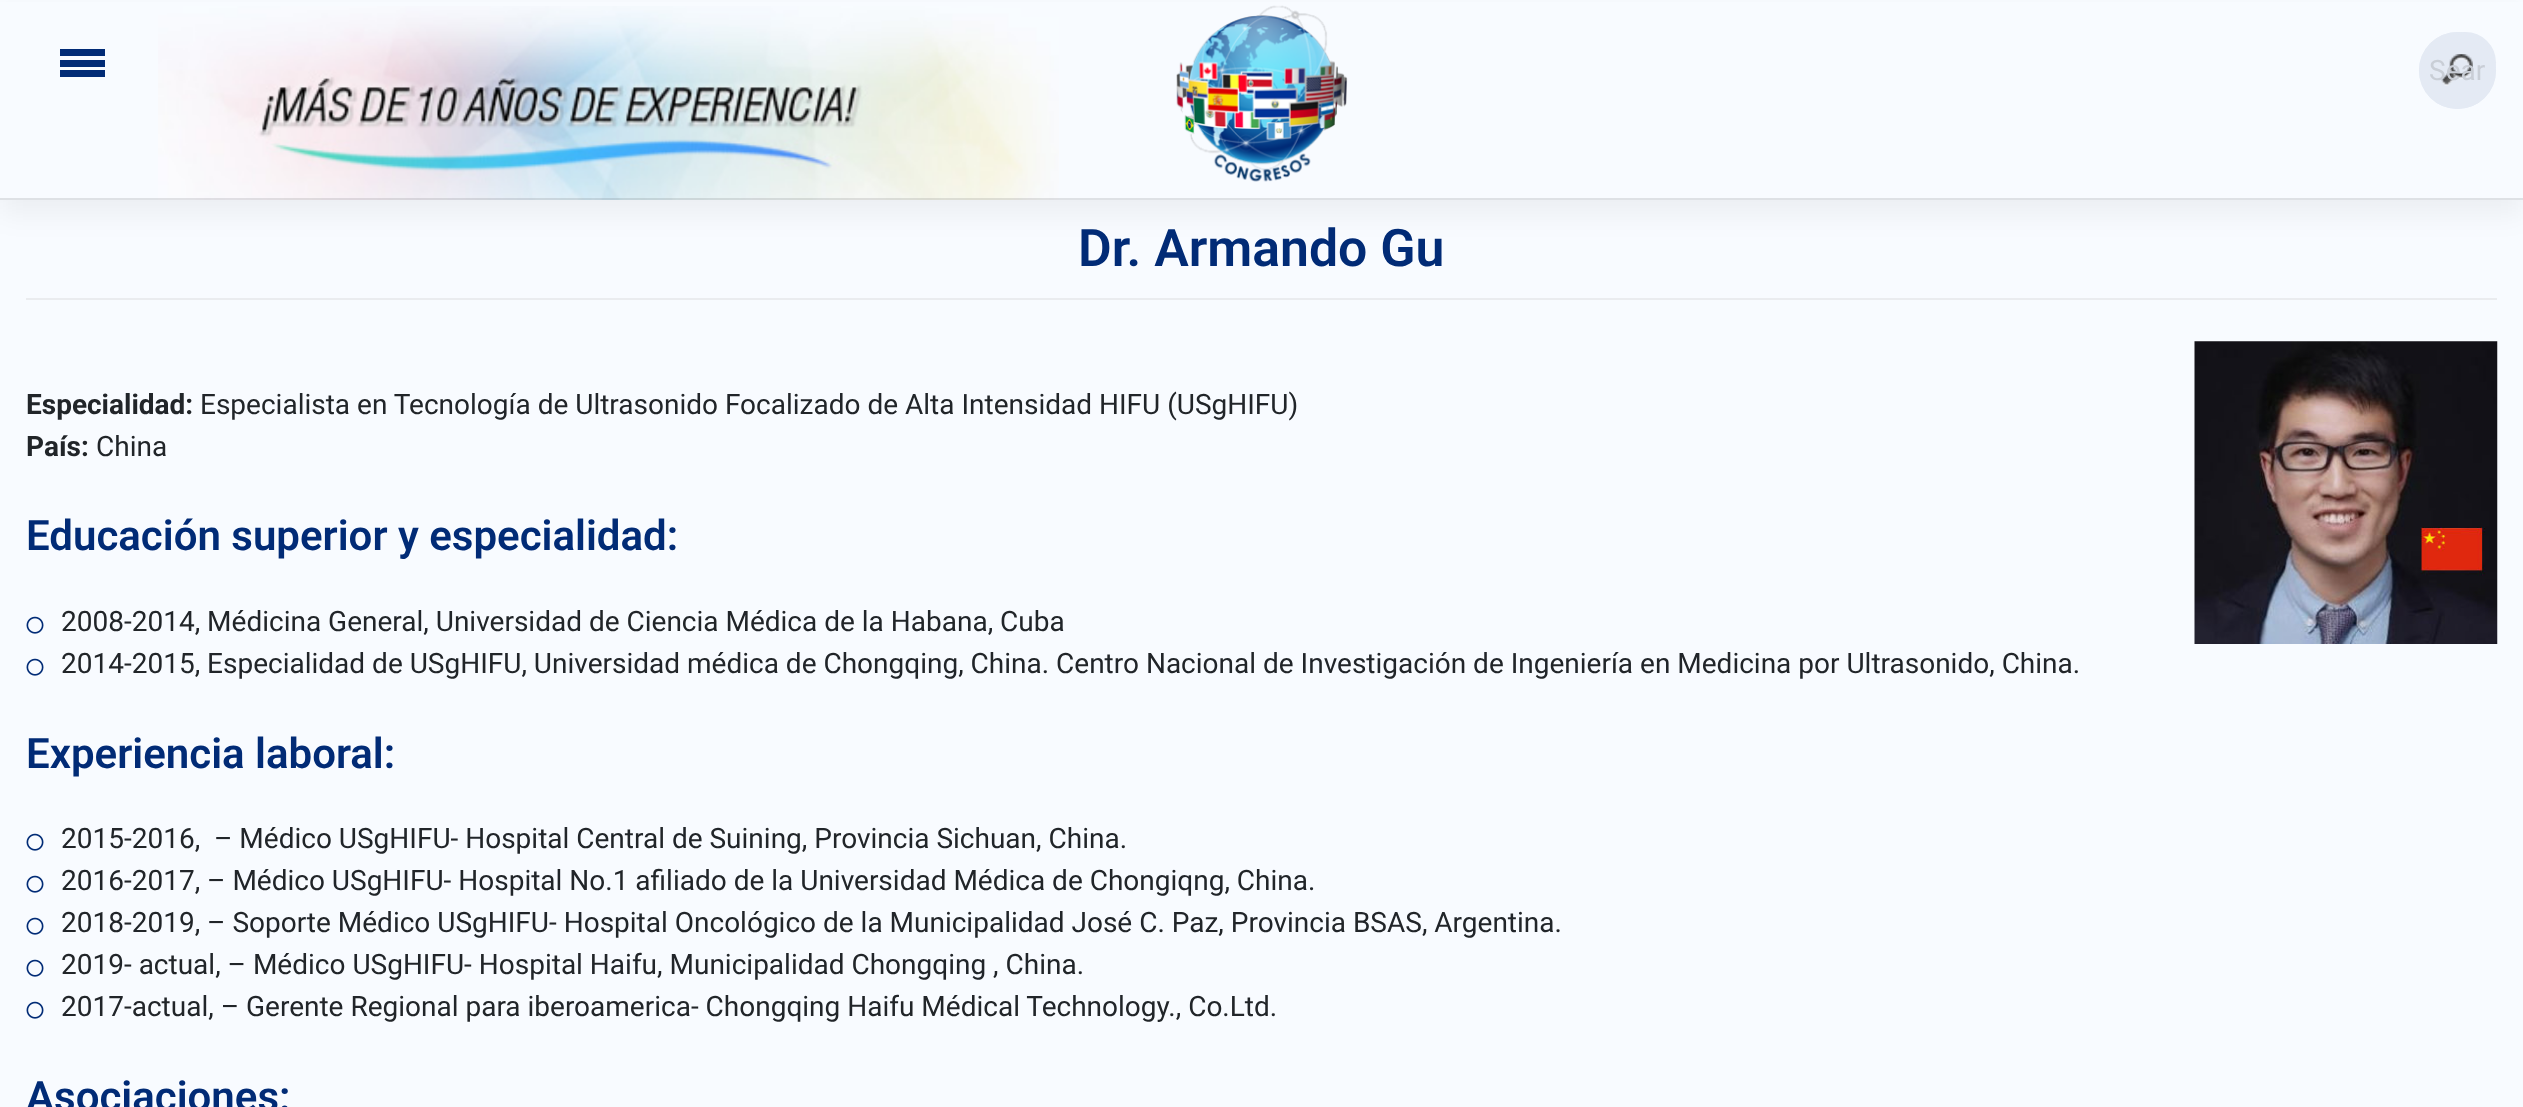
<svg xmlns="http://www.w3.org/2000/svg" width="2523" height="1107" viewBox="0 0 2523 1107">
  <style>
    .t1 { font: 28px Roboto; fill: #c9ced6; }
    .t2 { font: 600 51.75px Roboto; fill: #012b76; }
    .t3 { font: bold 28px Roboto; fill: #212529; }
    .t4 { font: 28px Roboto; fill: #212529; }
    .t5 { font: 600 42px Roboto; fill: #012b76; }
  </style>
  <rect width="100%" height="100%" fill="#f8fbff"/>
  <rect x="0" y="14" width="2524" height="200" fill="#0000000d" filter="blur(14px)"/>
  <rect x="0" y="2" width="2523" height="198" fill="#f8fbff"/>
  <image x="158" y="6" width="901" height="194" href="images/1.png"/>
  <rect x="0" y="198" width="2523" height="2" fill="#0000001a"/>
  <rect x="60" y="49" width="45" height="7" fill="#012b76"/>
  <rect x="60" y="60" width="45" height="7" fill="#012b76"/>
  <rect x="60" y="70" width="45" height="7" fill="#012b76"/>
  <image x="1176" y="5" width="172" height="177" href="images/2.png"/>
  <rect x="2434" y="32" width="62" height="61" rx="30.5" fill="#e4eaf4"/>
  <circle cx="2457.5" cy="70.5" r="38.5" fill="#e4eaf4"/>
  <image x="2441" y="54" width="32" height="32" href="images/3.png"/>
  <circle cx="2457.5" cy="70.5" r="37.5" fill="none" stroke="#e4eaf4" stroke-width="2"/>
  <text x="2429" y="80" class="t1">Sear</text>
  <rect x="26" y="298" width="2471" height="2" fill="#eaecef"/>
  <text x="1078" y="266" class="t2">Dr. Armando Gu</text>
  <text x="26" y="414" class="t3">Especialidad:</text>
  <text x="200" y="414" class="t4">Especialista en Tecnología de Ultrasonido Focalizado de Alta Intensidad HIFU (USgHIFU)</text>
  <text x="26" y="456" class="t3">País:</text>
  <text x="96" y="456" class="t4">China</text>
  <image x="2194" y="341" width="304" height="303" href="images/4.png"/>
  <text x="26" y="550" class="t5">Educación superior y especialidad:</text>
  <image x="26" y="616" width="18" height="18" href="images/5.png"/>
  <text x="61" y="631" class="t4">2008-2014, Médicina General, Universidad de Ciencia Médica de la Habana, Cuba</text>
  <image x="26" y="658" width="18" height="18" href="images/5.png"/>
  <text x="61" y="673" class="t4">2014-2015, Especialidad de USgHIFU, Universidad médica de Chongqing, China. Centro Nacional de Investigación de Ingeniería en Medicina por Ultrasonido, China.</text>
  <text x="26" y="768" class="t5">Experiencia laboral:</text>
  <image x="26" y="833" width="18" height="18" href="images/5.png"/>
  <text x="61" y="848" class="t4" xml:space="preserve">2015-2016,  – Médico USgHIFU- Hospital Central de Suining, Provincia Sichuan, China.</text>
  <image x="26" y="875" width="18" height="18" href="images/5.png"/>
  <text x="61" y="890" class="t4">2016-2017, – Médico USgHIFU- Hospital No.1 afiliado de la Universidad Médica de Chongiqng, China.</text>
  <image x="26" y="917" width="18" height="18" href="images/5.png"/>
  <text x="61" y="932" class="t4">2018-2019, – Soporte Médico USgHIFU- Hospital Oncológico de la Municipalidad José C. Paz, Provincia BSAS, Argentina.</text>
  <image x="26" y="959" width="18" height="18" href="images/5.png"/>
  <text x="61" y="974" class="t4">2019- actual, – Médico USgHIFU- Hospital Haifu, Municipalidad Chongqing , China.</text>
  <image x="26" y="1001" width="18" height="18" href="images/5.png"/>
  <text x="61" y="1016" class="t4">2017-actual, – Gerente Regional para iberoamerica- Chongqing Haifu Médical Technology., Co.Ltd.</text>
  <text x="26" y="1111" class="t5">Asociaciones:</text>
</svg>
